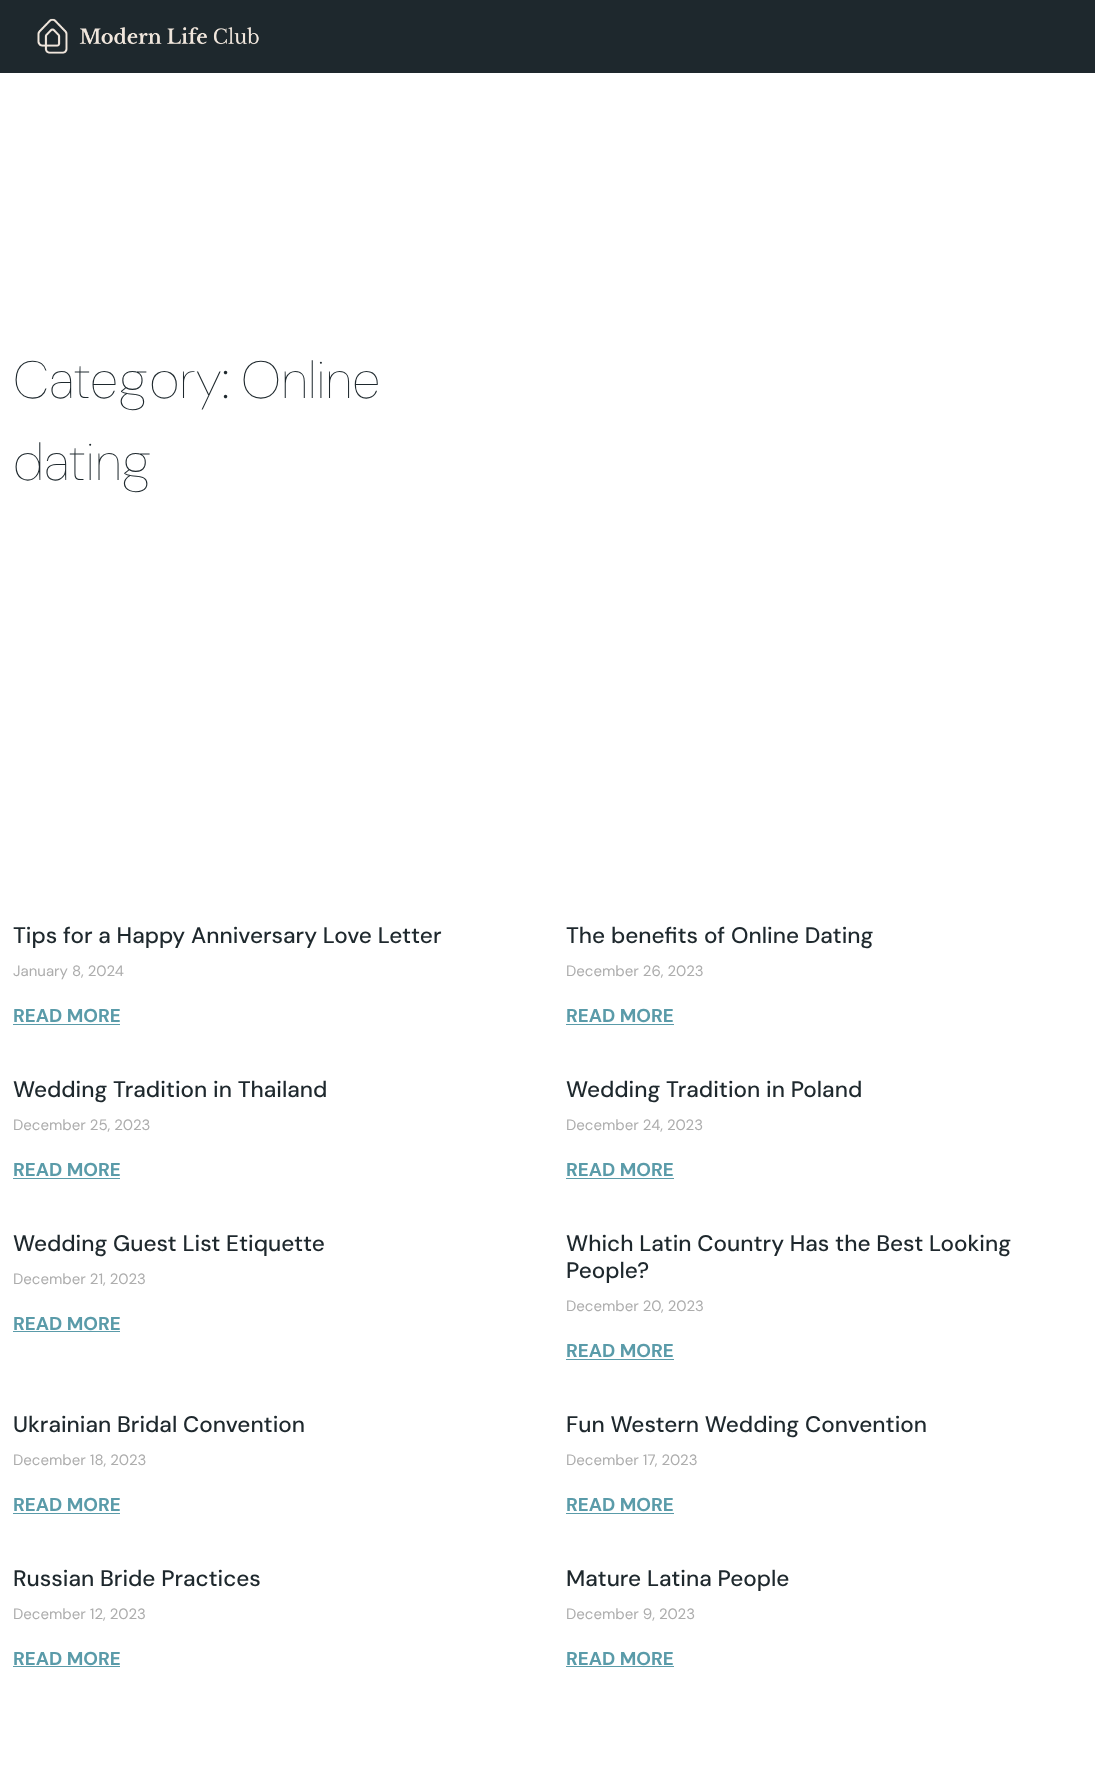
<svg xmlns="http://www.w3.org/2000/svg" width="1095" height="1782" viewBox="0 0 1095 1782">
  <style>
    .t1 { font: 100 52.5px DM Sans; fill: #1e282d; }
    .t2 { font: 500 22.5px DM Sans; fill: #1e282d; }
    .t3 { font: 15px DM Sans; fill: #adadad; }
    .t4 { font: bold 18.75px DM Sans; fill: #5a9ba9; }
  </style>
  <rect width="100%" height="100%" fill="#fff"/>
  <rect x="0" y="0" width="1095" height="73" fill="#1e282d"/>
  <image x="37" y="18" width="222" height="36" href="images/1.png"/>
  <text x="13" y="398" class="t1">Category: Online</text>
  <text x="13" y="480" class="t1">dating</text>
  <text x="13" y="943" class="t2">Tips for a Happy Anniversary Love Letter</text>
  <text x="13" y="976" class="t3">January 8, 2024</text>
  <text x="13" y="1022" class="t4">READ MORE</text>
  <rect x="13" y="1024" width="107" height="1" fill="#5a9ba9"/>
  <text x="566" y="943" class="t2">The benefits of Online Dating</text>
  <text x="566" y="976" class="t3">December 26, 2023</text>
  <text x="566" y="1022" class="t4">READ MORE</text>
  <rect x="566" y="1024" width="108" height="1" fill="#5a9ba9"/>
  <text x="13" y="1097" class="t2">Wedding Tradition in Thailand</text>
  <text x="13" y="1130" class="t3">December 25, 2023</text>
  <text x="13" y="1176" class="t4">READ MORE</text>
  <rect x="13" y="1178" width="107" height="1" fill="#5a9ba9"/>
  <text x="566" y="1097" class="t2">Wedding Tradition in Poland</text>
  <text x="566" y="1130" class="t3">December 24, 2023</text>
  <text x="566" y="1176" class="t4">READ MORE</text>
  <rect x="566" y="1178" width="108" height="1" fill="#5a9ba9"/>
  <text x="13" y="1251" class="t2">Wedding Guest List Etiquette</text>
  <text x="13" y="1284" class="t3">December 21, 2023</text>
  <text x="13" y="1330" class="t4">READ MORE</text>
  <rect x="13" y="1331" width="107" height="1" fill="#5a9ba9"/>
  <text x="566" y="1251" class="t2">Which Latin Country Has the Best Looking</text>
  <text x="566" y="1278" class="t2">People?</text>
  <text x="566" y="1311" class="t3">December 20, 2023</text>
  <text x="566" y="1357" class="t4">READ MORE</text>
  <rect x="566" y="1359" width="108" height="1" fill="#5a9ba9"/>
  <text x="13" y="1432" class="t2">Ukrainian Bridal Convention</text>
  <text x="13" y="1465" class="t3">December 18, 2023</text>
  <text x="13" y="1511" class="t4">READ MORE</text>
  <rect x="13" y="1513" width="107" height="1" fill="#5a9ba9"/>
  <text x="566" y="1432" class="t2">Fun Western Wedding Convention</text>
  <text x="566" y="1465" class="t3">December 17, 2023</text>
  <text x="566" y="1511" class="t4">READ MORE</text>
  <rect x="566" y="1513" width="108" height="1" fill="#5a9ba9"/>
  <text x="13" y="1586" class="t2">Russian Bride Practices</text>
  <text x="13" y="1619" class="t3">December 12, 2023</text>
  <text x="13" y="1665" class="t4">READ MORE</text>
  <rect x="13" y="1666" width="107" height="1" fill="#5a9ba9"/>
  <text x="566" y="1586" class="t2">Mature Latina People</text>
  <text x="566" y="1619" class="t3">December 9, 2023</text>
  <text x="566" y="1665" class="t4">READ MORE</text>
  <rect x="566" y="1666" width="108" height="1" fill="#5a9ba9"/>
</svg>
